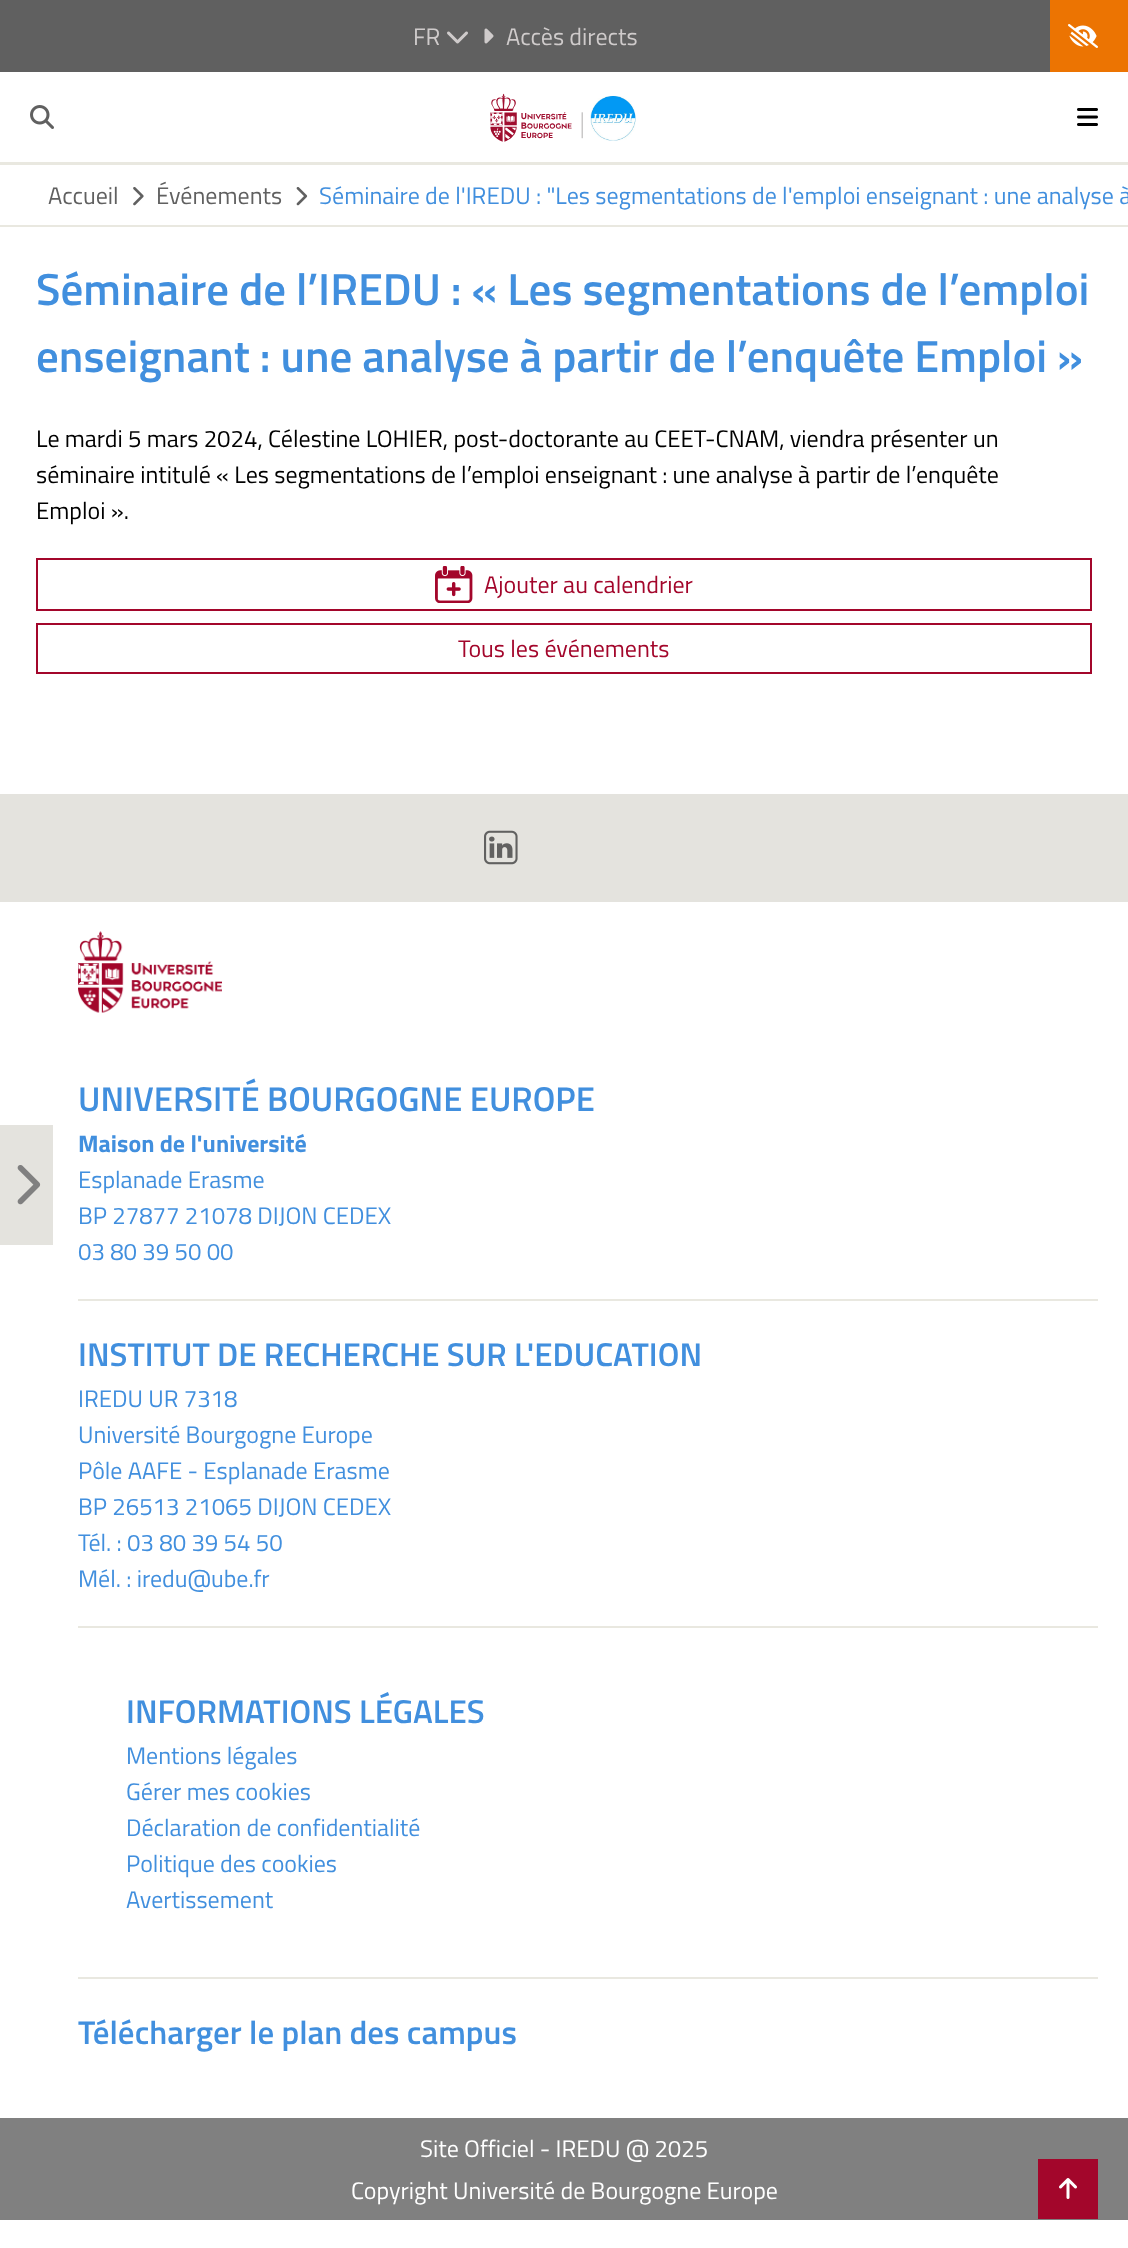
<svg xmlns="http://www.w3.org/2000/svg" width="1128" height="2248" viewBox="0 0 1128 2248">
  <style>
    .t1 { font: 24px Titillium Web; fill: #cfcbcb; }
    .t2 { font: 24px Titillium Web; fill: #606060; }
    .t3 { font: 24px Titillium Web; fill: #418fde; }
    .t4 { font: 600 45px Titillium Web; fill: #418fde; }
    .t5 { font: 24px Titillium Web; fill: #000; }
    .t6 { font: 24px Titillium Web; fill: #a3062b; }
    .t7 { font: 600 34.5px Titillium Web; fill: #418fde; }
    .t8 { font: bold 24px Titillium Web; fill: #418fde; }
    .t9 { font: 600 33px Titillium Web; fill: #418fde; }
    .t10 { font: 24px Titillium Web; fill: #fff; }
  </style>
  <rect width="100%" height="100%" fill="#fff"/>
  <rect x="0" y="0" width="1050" height="72" fill="#606060"/>
  <text x="413" y="45" class="t1">FR</text>
  <image x="447" y="31" width="21" height="13" href="images/1.png"/>
  <image x="484" y="28" width="10" height="16" href="images/2.png"/>
  <text x="506" y="45" class="t1">Accès directs</text>
  <rect x="1050" y="0" width="78" height="72" fill="#ec7402"/>
  <image x="1068" y="24" width="30" height="24" href="images/3.png"/>
  <rect x="0" y="162" width="1128" height="3" fill="#e9e8e0"/>
  <image x="30" y="105" width="24" height="24" href="images/4.png"/>
  <image x="490" y="93" width="146" height="49" href="images/5.png"/>
  <image x="1077" y="108" width="21" height="18" href="images/6.png"/>
  <rect x="0" y="225" width="1128" height="2" fill="#e9e8e0"/>
  <text x="48" y="204" class="t2">Accueil</text>
  <image x="133" y="187" width="11" height="19" href="images/7.png"/>
  <text x="156" y="204" class="t2">Événements</text>
  <image x="296" y="187" width="12" height="19" href="images/8.png"/>
  <text x="319" y="204" class="t3">Séminaire de l'IREDU : "Les segmentations de l'emploi enseignant : une analyse à</text>
  <text x="36" y="305" class="t4">Séminaire de l’IREDU : « Les segmentations de l’emploi</text>
  <text x="36" y="372" class="t4">enseignant : une analyse à partir de l’enquête Emploi »</text>
  <text x="36" y="447" class="t5">Le mardi 5 mars 2024, Célestine LOHIER, post-doctorante au CEET-CNAM, viendra présenter un</text>
  <text x="36" y="483" class="t5">séminaire intitulé « Les segmentations de l’emploi enseignant : une analyse à partir de l’enquête</text>
  <text x="36" y="519" class="t5">Emploi ».</text>
  <rect x="37" y="559" width="1054" height="51" fill="none" stroke="#a3062b" stroke-width="2"/>
  <image x="435" y="566" width="38" height="37" href="images/9.png"/>
  <text x="484" y="593" class="t6">Ajouter au calendrier</text>
  <rect x="37" y="624" width="1054" height="49" fill="none" stroke="#a3062b" stroke-width="2"/>
  <text x="458" y="657" class="t6">Tous les événements</text>
  <rect x="0" y="1125" width="53" height="120" fill="#e4e3de"/>
  <image x="17" y="1165" width="24" height="40" href="images/10.png"/>
  <rect x="0" y="794" width="1128" height="108" fill="#e4e3de"/>
  <image x="484" y="830" width="34" height="35" href="images/11.png"/>
  <image x="78" y="931" width="144" height="82" href="images/12.png"/>
  <text x="78" y="1111" class="t7">UNIVERSITÉ BOURGOGNE EUROPE</text>
  <text x="78" y="1152" class="t8">Maison de l'université</text>
  <text x="78" y="1188" class="t3">Esplanade Erasme</text>
  <text x="78" y="1224" class="t3">BP 27877 21078 DIJON CEDEX</text>
  <text x="78" y="1260" class="t3">03 80 39 50 00</text>
  <rect x="78" y="1299" width="1020" height="2" fill="#e9e8e0"/>
  <text x="78" y="1366" class="t9">INSTITUT DE RECHERCHE SUR L'EDUCATION</text>
  <text x="78" y="1407" class="t3">IREDU UR 7318</text>
  <text x="78" y="1443" class="t3">Université Bourgogne Europe</text>
  <text x="78" y="1479" class="t3">Pôle AAFE - Esplanade Erasme</text>
  <text x="78" y="1515" class="t3">BP 26513 21065 DIJON CEDEX</text>
  <text x="78" y="1551" class="t3">Tél. : 03 80 39 54 50</text>
  <text x="78" y="1587" class="t3">Mél. : iredu@ube.fr</text>
  <rect x="78" y="1626" width="1020" height="2" fill="#e9e8e0"/>
  <text x="126" y="1723" class="t9">INFORMATIONS LÉGALES</text>
  <text x="126" y="1764" class="t3">Mentions légales</text>
  <text x="126" y="1800" class="t3">Gérer mes cookies</text>
  <text x="126" y="1836" class="t3">Déclaration de confidentialité</text>
  <text x="126" y="1872" class="t3">Politique des cookies</text>
  <text x="126" y="1908" class="t3">Avertissement</text>
  <rect x="78" y="1977" width="1020" height="2" fill="#e9e8e0"/>
  <text x="78" y="2044" class="t9">Télécharger le plan des campus</text>
  <rect x="0" y="2118" width="1128" height="102" fill="#808080"/>
  <text x="420" y="2157" class="t10">Site Officiel - IREDU @ 2025</text>
  <text x="351" y="2199" class="t10">Copyright Université de Bourgogne Europe</text>
  <rect x="1038" y="2159" width="60" height="60" fill="#a3062b"/>
  <image x="1059" y="2178" width="18" height="21" href="images/13.png"/>
</svg>
